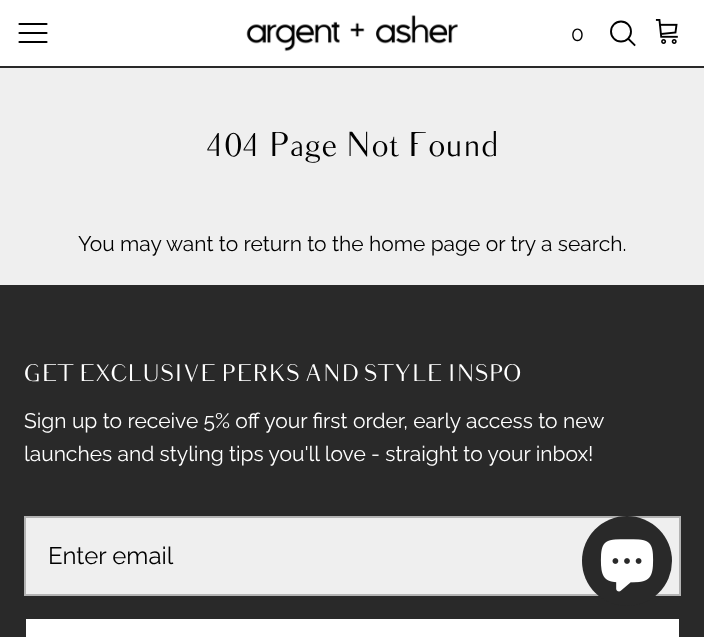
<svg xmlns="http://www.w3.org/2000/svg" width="704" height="637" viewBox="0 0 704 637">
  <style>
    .t1 { font: 21px Raleway; fill: #000; }
    .t2 { font: 33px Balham; fill: #000; }
    .t3 { font: 22.9px Balham; fill: #fff; }
    .t4 { font: 21px Raleway; fill: #fff; }
    .t5 { font: 24px Raleway; fill: #000; }
  </style>
  <rect width="100%" height="100%" fill="#efefef"/>
  <rect x="0" y="0" width="704" height="66" fill="#fff"/>
  <rect x="0" y="66" width="704" height="2" fill="#292929"/>
  <path d="M19.5 33H46.5M19.5 24H46.5M19.5 42H46.5" fill="none" stroke="#000" stroke-width="2.2" stroke-linecap="round" stroke-linejoin="round"/>
  <image x="246" y="15" width="212" height="37" href="images/1.png"/>
  <text x="571" y="41" class="t1">0</text>
  <circle cx="621" cy="31.5" r="10" fill="none" stroke="#000" stroke-width="1.9"/>
  <path d="M628.5 39L634.5 45" fill="none" stroke="#000" stroke-width="1.9" stroke-linecap="square"/>
  <image x="655" y="19" width="23" height="25" href="images/2.png"/>
  <text x="206" y="156" class="t2">404 Page Not Found</text>
  <text x="78" y="251" class="t1">You may want to return to the home page or try a search.</text>
  <rect x="0" y="285" width="704" height="352" fill="#292929"/>
  <text x="24" y="381" class="t3">GET EXCLUSIVE PERKS AND STYLE INSPO</text>
  <text x="24" y="428" class="t4">Sign up to receive 5% off your first order, early access to new</text>
  <text x="24" y="461" class="t4">launches and styling tips you'll love - straight to your inbox!</text>
  <rect x="25" y="517" width="655" height="78" fill="#efefef" stroke="#b3b3b3" stroke-width="2"/>
  <text x="48" y="564" class="t5">Enter email</text>
  <rect x="26" y="619" width="653" height="18" fill="#fff"/>
  <circle cx="627" cy="561" r="45" fill="#292929"/>
  <image x="600" y="539" width="54" height="53" href="images/3.png"/>
</svg>
